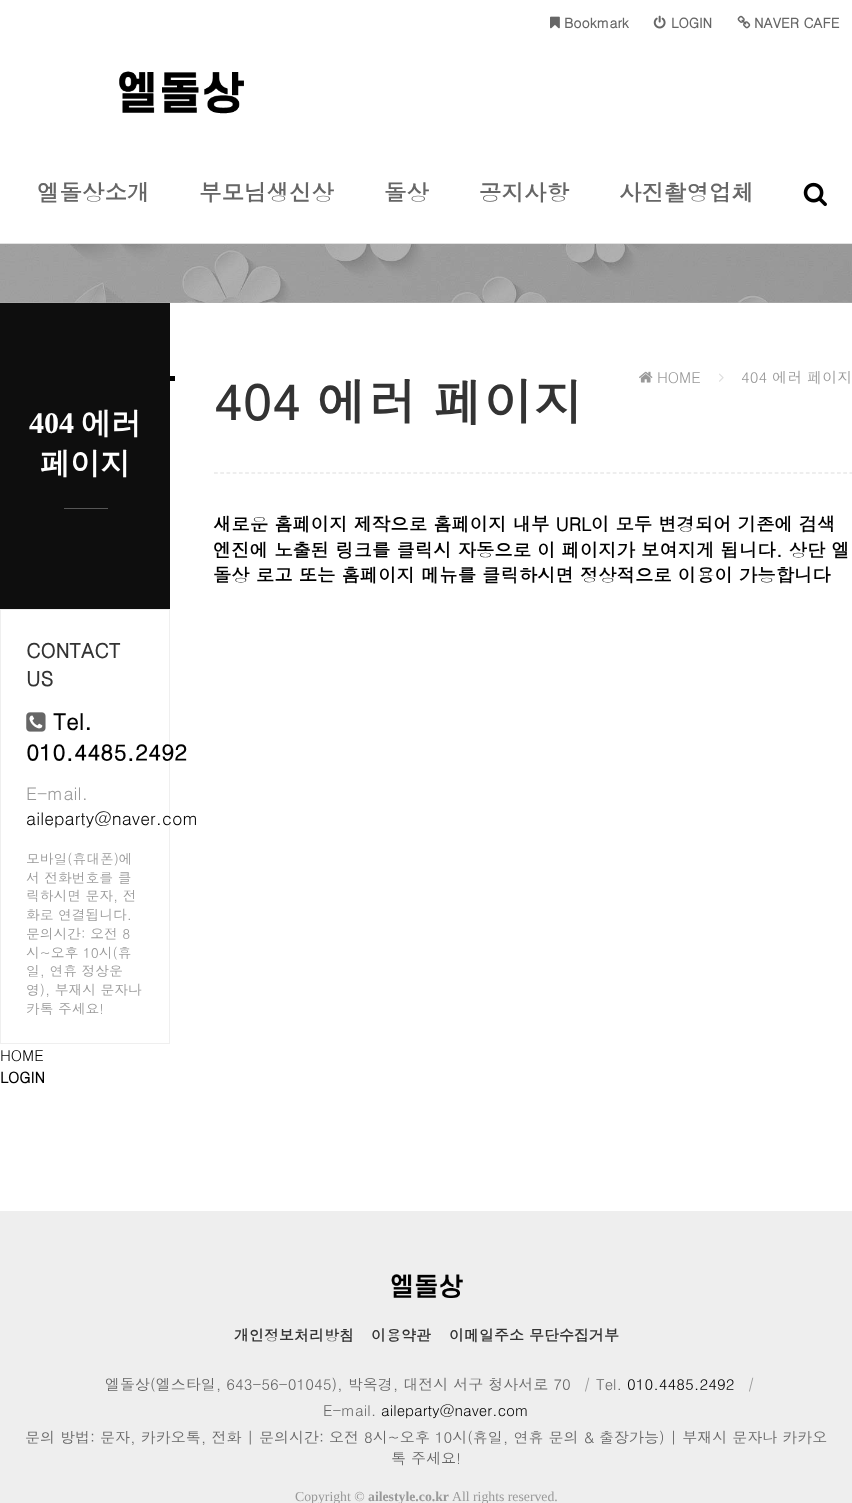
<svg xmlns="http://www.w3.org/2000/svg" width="852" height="1503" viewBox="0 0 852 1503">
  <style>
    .t1 { font: bold 13.75px Dotum; fill: #666; }
    .t2 { font: bold 22.5px Dotum; fill: #666; }
    .t3 { font: 15px Dotum; fill: #999; }
    .t4 { font: bold 50px Dotum; fill: #333; }
    .t5 { font: bold 18.35px Dotum; fill: #000; }
    .t6 { font: bold 30px Liberation Serif; fill: #fff; }
    .t7 { font: bold 30px WenQuanYi Zen Hei; fill: #fff; }
    .t8 { font: bold 20px Dotum; fill: #333; }
    .t9 { font: bold 22.5px Dotum; fill: #000; }
    .t10 { font: 17.5px Dotum; fill: #999; }
    .t11 { font: 17.5px Dotum; fill: #000; }
    .t12 { font: 13.75px Dotum; fill: #999; }
    .t13 { font: 15px Dotum; fill: #000; }
    .t14 { font: bold 15px Dotum; fill: #000; }
    .t15 { font: bold 15px Dotum; fill: #333; }
    .t16 { font: 15px Dotum; fill: #666; }
    .t17 { font: italic 15px Dotum; fill: #999; }
    .t18 { font: 13.75px Liberation Serif; fill: #999; }
    .t19 { font: bold 13.75px Liberation Serif; fill: #999; }
  </style>
  <rect width="100%" height="100%" fill="#fff"/>
  <rect x="0" y="302" width="852" height="1" fill="#b3b3b3"/>
  <image x="550" y="16" width="10" height="13" href="images/1.png"/>
  <text x="564" y="28" class="t1">Bookmark</text>
  <image x="653" y="15" width="13" height="14" href="images/2.png"/>
  <text x="671" y="28" class="t1">LOGIN</text>
  <image x="737" y="15" width="14" height="14" href="images/3.png"/>
  <text x="754" y="28" class="t1">NAVER CAFE</text>
  <rect x="0" y="243" width="852" height="1" fill="#e2e2e2"/>
  <image x="119" y="71" width="125" height="43" href="images/4.png"/>
  <text x="37" y="201" class="t2">엘돌상소개</text>
  <text x="199" y="201" class="t2">부모님생신상</text>
  <text x="384" y="201" class="t2">돌상</text>
  <text x="479" y="201" class="t2">공지사항</text>
  <text x="619" y="201" class="t2">사진촬영업체</text>
  <image x="803" y="182" width="24" height="25" href="images/5.png"/>
  <image x="0" y="244" width="852" height="59" href="images/6.png"/>
  <rect x="170" y="376" width="5" height="5" fill="#000"/>
  <path d="M214 473H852.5" fill="none" stroke="#ddd" stroke-width="1.2" stroke-dasharray="3.75 2.48"/>
  <image x="639" y="371" width="14" height="12" href="images/7.png"/>
  <text x="657" y="383" class="t3">HOME</text>
  <image x="719" y="373" width="5" height="9" href="images/8.png"/>
  <text x="741" y="383" class="t3">404 에러 페이지</text>
  <text x="213" y="421" class="t4">404 에러 페이지</text>
  <text x="213" y="531" class="t5">새로운 홈페이지 제작으로 홈페이지 내부 URL이 모두 변경되어 기존에 검색</text>
  <text x="213" y="557" class="t5">엔진에 노출된 링크를 클릭시 자동으로 이 페이지가 보여지게 됩니다. 상단 엘</text>
  <text x="213" y="582" class="t5">돌상 로고 또는 홈페이지 메뉴를 클릭하시면 정상적으로 이용이 가능합니다</text>
  <rect x="0" y="303" width="170" height="306" fill="#0e0e0e"/>
  <text x="29" y="433" class="t6">404</text>
  <text x="81" y="433" class="t7">에러</text>
  <text x="40" y="473" class="t7">페이지</text>
  <rect x="64" y="508" width="44" height="1" fill="#565656"/>
  <rect x="0.5" y="609.5" width="169" height="434" fill="none" stroke="#efefef"/>
  <text x="26" y="658" class="t8">CONTACT</text>
  <text x="26" y="686" class="t8">US</text>
  <image x="26" y="712" width="20" height="20" href="images/9.png"/>
  <text x="53" y="730" class="t9">Tel.</text>
  <text x="26" y="761" class="t9">010.4485.2492</text>
  <text x="26" y="800" class="t10">E-mail.</text>
  <text x="26" y="825" class="t11">aileparty@naver.com</text>
  <text x="26" y="864" class="t12">모바일(휴대폰)에</text>
  <text x="26" y="883" class="t12">서 전화번호를 클</text>
  <text x="26" y="901" class="t12">릭하시면 문자, 전</text>
  <text x="26" y="920" class="t12">화로 연결됩니다.</text>
  <text x="26" y="939" class="t12">문의시간: 오전 8</text>
  <text x="26" y="958" class="t12">시~오후 10시(휴</text>
  <text x="26" y="976" class="t12">일, 연휴 정상운</text>
  <text x="26" y="995" class="t12">영), 부재시 문자나</text>
  <text x="26" y="1014" class="t12">카톡 주세요!</text>
  <text x="0" y="1061" class="t13">HOME</text>
  <text x="0" y="1083" class="t14">LOGIN</text>
  <rect x="0" y="1211" width="852" height="292" fill="#eee"/>
  <image x="391" y="1274" width="72" height="24" href="images/10.png"/>
  <text x="234" y="1341" class="t15">개인정보처리방침</text>
  <text x="371" y="1341" class="t15">이용약관</text>
  <text x="449" y="1341" class="t15">이메일주소 무단수집거부</text>
  <text x="105" y="1390" class="t16">엘돌상(엘스타일, 643-56-01045), 박옥경, 대전시 서구 청사서로 70</text>
  <text x="582" y="1390" class="t17">|</text>
  <text x="596" y="1390" class="t16">Tel.</text>
  <text x="627" y="1390" class="t13">010.4485.2492</text>
  <text x="746" y="1390" class="t17">|</text>
  <text x="323" y="1416" class="t16">E-mail.</text>
  <text x="381" y="1416" class="t13">aileparty@naver.com</text>
  <text x="25" y="1443" class="t16">문의 방법: 문자, 카카오톡, 전화 | 문의시간: 오전 8시~오후 10시(휴일, 연휴 문의 &amp; 출장가능) | 부재시 문자나 카카오</text>
  <text x="391" y="1464" class="t16">톡 주세요!</text>
  <text x="295" y="1501" class="t18">Copyright ©</text>
  <text x="368" y="1501" class="t19">ailestyle.co.kr</text>
  <text x="452" y="1501" class="t18">All rights reserved.</text>
</svg>
